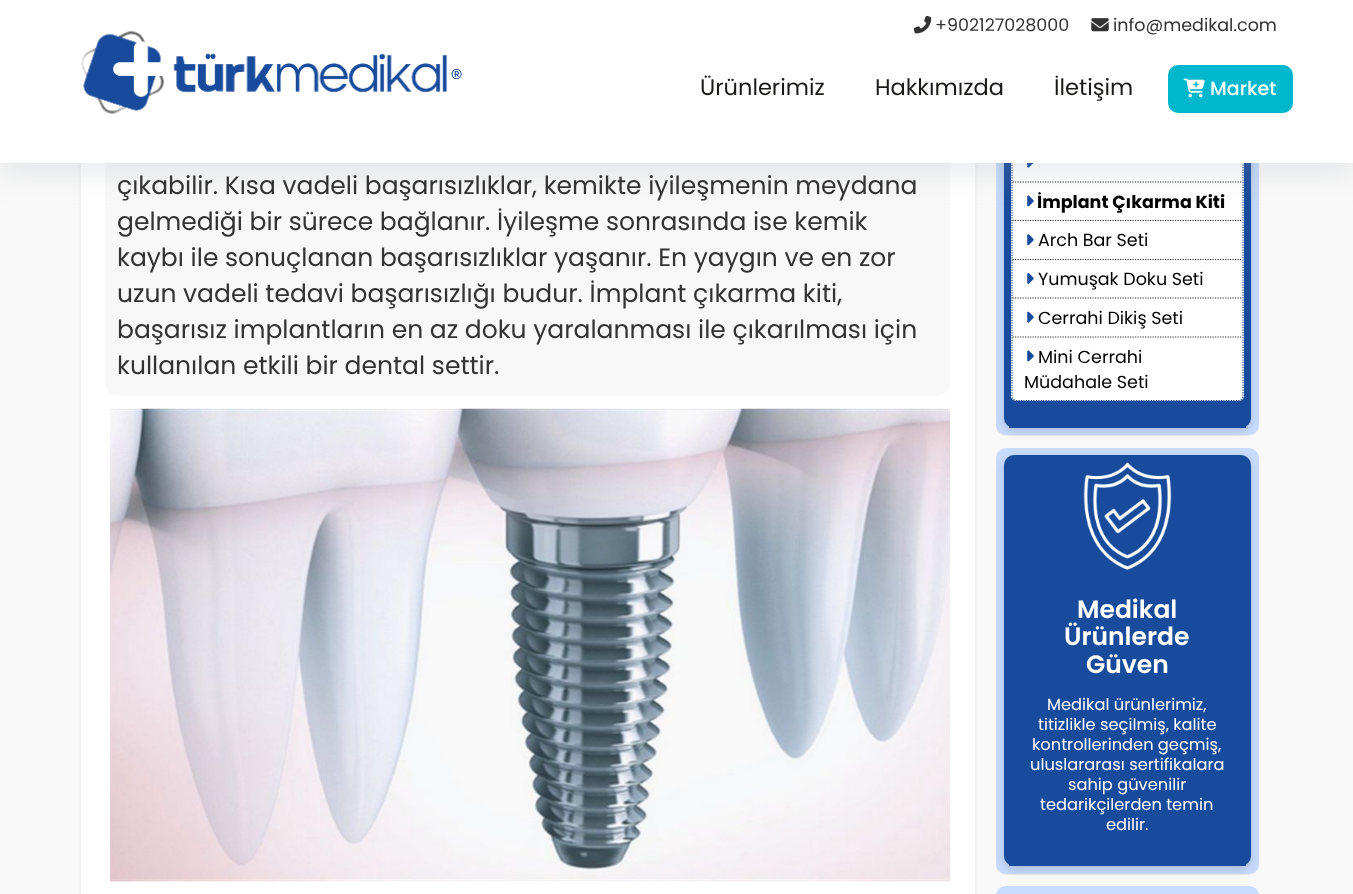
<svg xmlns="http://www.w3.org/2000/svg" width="1353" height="894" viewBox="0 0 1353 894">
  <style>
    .t1 { font: 17.5px Poppins; fill: #333; }
    .t2 { font: 22.5px Poppins; fill: #191918; }
    .t3 { font: 500 19px Poppins; fill: #fff; }
    .t4 { font: 25px Poppins; fill: #333; }
    .t5 { font: bold 17.5px Poppins; fill: #000; }
    .t6 { font: 17.5px Poppins; fill: #000; }
    .t7 { font: 600 25px Poppins; fill: #fff; }
    .t8 { font: 16.25px Poppins; fill: #fff; }
  </style>
  <defs>
    <clipPath id="clip1"><rect x="1013" y="28" width="230" height="372" rx="4"/></clipPath>
  </defs>
  <rect width="100%" height="100%" fill="#f9f9f9"/>
  <rect x="81" y="163" width="894" height="731" fill="#fff"/>
  <rect x="79.5" y="-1.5" width="897" height="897" fill="none" stroke="#f4f4f4" stroke-width="3"/>
  <rect x="105" y="84" width="845" height="312" rx="13" fill="#f8f8f8"/>
  <rect x="996" y="-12" width="263" height="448" rx="10" fill="#0000000d" filter="blur(0.5px)"/>
  <rect x="996" y="-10" width="263" height="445" rx="10" fill="#c7dcff"/>
  <rect x="1004" y="-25" width="247" height="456" rx="10" fill="#3232322e" filter="blur(5px)"/>
  <rect x="1004" y="-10" width="247" height="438" rx="10" fill="#184b9b"/>
  <rect x="1011" y="26" width="233" height="375" rx="5" fill="#fff"/>
  <path d="M1016 27H1239C1241 27 1243 29 1243 31V396C1243 398.5 1241 400.5 1239 400.5H1016C1014 400.5 1012 398.5 1012 396V31C1012 29 1014 27 1016 27Z" fill="none" stroke="#184b9b" stroke-width="1.2" stroke-dasharray="1.25 1.25"/>
  <path d="M1012.5 182H1242.5" fill="none" stroke="#333" stroke-width="1.2" stroke-dasharray="1.25 1.25"/>
  <image x="1027" y="163" width="7" height="5" href="images/6.png"/>
  <path d="M1012.5 220.5H1242.5" fill="none" stroke="#333" stroke-width="1.2" stroke-dasharray="1.25 1.25"/>
  <image x="1027" y="195" width="7" height="12" href="images/7.png"/>
  <rect x="0" y="10" width="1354" height="164" fill="#959da533" filter="blur(15px)"/>
  <rect x="0" y="0" width="1353" height="163" fill="#fff"/>
  <image x="913" y="15" width="19" height="19" href="images/1.png"/>
  <text x="935" y="31" class="t1">+902127028000</text>
  <image x="1091" y="18" width="18" height="14" href="images/2.png"/>
  <text x="1113" y="31" class="t1">info@medikal.com</text>
  <image x="81" y="30" width="381" height="84" href="images/3.png"/>
  <text x="700" y="95" class="t2">Ürünlerimiz</text>
  <text x="875" y="95" class="t2">Hakkımızda</text>
  <text x="1054" y="95" class="t2">İletişim</text>
  <rect x="1168" y="65" width="125" height="48" rx="10" fill="#00b7ce"/>
  <image x="1183" y="78" width="22" height="20" href="images/4.png"/>
  <text x="1210" y="95" class="t3">Market</text>
  <text x="117" y="194" class="t4">çıkabilir. Kısa vadeli başarısızlıklar, kemikte iyileşmenin meydana</text>
  <text x="117" y="230" class="t4">gelmediği bir sürece bağlanır. İyileşme sonrasında ise kemik</text>
  <text x="117" y="266" class="t4">kaybı ile sonuçlanan başarısızlıklar yaşanır. En yaygın ve en zor</text>
  <text x="117" y="302" class="t4">uzun vadeli tedavi başarısızlığı budur. İmplant çıkarma kiti,</text>
  <text x="117" y="338" class="t4">başarısız implantların en az doku yaralanması ile çıkarılması için</text>
  <text x="117" y="374" class="t4">kullanılan etkili bir dental settir.</text>
  <image x="110" y="408" width="840" height="474" href="images/5.png"/>
  <rect x="1009" y="426" width="237" height="2" fill="#184b9b"/>
  <text x="1037" y="208" class="t5">İmplant Çıkarma Kiti</text>
  <path d="M1012.5 259.5H1242.5" fill="none" stroke="#333" stroke-width="1.2" stroke-dasharray="1.25 1.25"/>
  <image x="1027" y="234" width="7" height="12" href="images/8.png"/>
  <text x="1038" y="246" class="t6">Arch Bar Seti</text>
  <path d="M1012.5 298H1242.5" fill="none" stroke="#333" stroke-width="1.2" stroke-dasharray="1.25 1.25"/>
  <image x="1027" y="273" width="7" height="11" href="images/9.png"/>
  <text x="1038" y="285" class="t6">Yumuşak Doku Seti</text>
  <path d="M1012.5 337H1242.5" fill="none" stroke="#333" stroke-width="1.2" stroke-dasharray="1.25 1.25"/>
  <image x="1027" y="311" width="7" height="12" href="images/10.png"/>
  <text x="1038" y="324" class="t6">Cerrahi Dikiş Seti</text>
  <g clip-path="url(#clip1)">
    <path d="M1012.5 400.5H1242.5" fill="none" stroke="#333" stroke-width="1.2" stroke-dasharray="1.25 1.25"/>
  </g>
  <image x="1027" y="350" width="7" height="12" href="images/7.png"/>
  <text x="1038" y="363" class="t6">Mini Cerrahi</text>
  <text x="1024" y="388" class="t6">Müdahale Seti</text>
  <rect x="996" y="449" width="263" height="426" rx="10" fill="#0000000d" filter="blur(0.5px)"/>
  <rect x="996" y="448" width="263" height="426" rx="10" fill="#c7dcff"/>
  <rect x="1004" y="459" width="247" height="411" rx="10" fill="#3232322e" filter="blur(5px)"/>
  <rect x="1004" y="455" width="247" height="411" rx="10" fill="#184b9b"/>
  <rect x="1009" y="864" width="237" height="2" fill="#184b9b"/>
  <image x="1083" y="462" width="89" height="108" href="images/11.png"/>
  <text x="1077" y="618" class="t7">Medikal</text>
  <text x="1064" y="645" class="t7">Ürünlerde</text>
  <text x="1086" y="673" class="t7">Güven</text>
  <text x="1047" y="710" class="t8">Medikal ürünlerimiz,</text>
  <text x="1038" y="730" class="t8">titizlikle seçilmiş, kalite</text>
  <text x="1032" y="750" class="t8">kontrollerinden geçmiş,</text>
  <text x="1030" y="770" class="t8">uluslararası sertifikalara</text>
  <text x="1068" y="790" class="t8">sahip güvenilir</text>
  <text x="1040" y="810" class="t8">tedarikçilerden temin</text>
  <text x="1106" y="830" class="t8">edilir.</text>
  <rect x="996" y="886" width="263" height="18" rx="10" fill="#c7dcff"/>
</svg>
